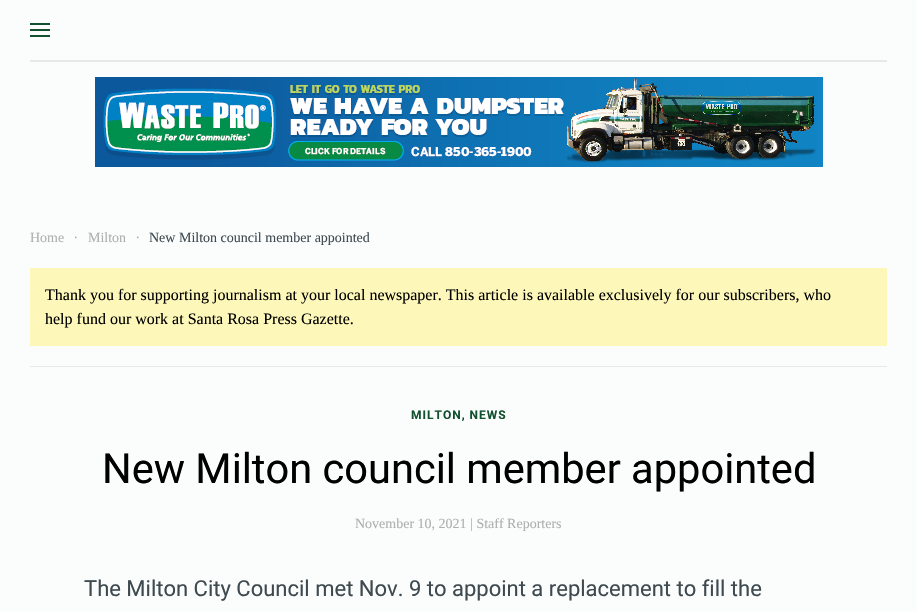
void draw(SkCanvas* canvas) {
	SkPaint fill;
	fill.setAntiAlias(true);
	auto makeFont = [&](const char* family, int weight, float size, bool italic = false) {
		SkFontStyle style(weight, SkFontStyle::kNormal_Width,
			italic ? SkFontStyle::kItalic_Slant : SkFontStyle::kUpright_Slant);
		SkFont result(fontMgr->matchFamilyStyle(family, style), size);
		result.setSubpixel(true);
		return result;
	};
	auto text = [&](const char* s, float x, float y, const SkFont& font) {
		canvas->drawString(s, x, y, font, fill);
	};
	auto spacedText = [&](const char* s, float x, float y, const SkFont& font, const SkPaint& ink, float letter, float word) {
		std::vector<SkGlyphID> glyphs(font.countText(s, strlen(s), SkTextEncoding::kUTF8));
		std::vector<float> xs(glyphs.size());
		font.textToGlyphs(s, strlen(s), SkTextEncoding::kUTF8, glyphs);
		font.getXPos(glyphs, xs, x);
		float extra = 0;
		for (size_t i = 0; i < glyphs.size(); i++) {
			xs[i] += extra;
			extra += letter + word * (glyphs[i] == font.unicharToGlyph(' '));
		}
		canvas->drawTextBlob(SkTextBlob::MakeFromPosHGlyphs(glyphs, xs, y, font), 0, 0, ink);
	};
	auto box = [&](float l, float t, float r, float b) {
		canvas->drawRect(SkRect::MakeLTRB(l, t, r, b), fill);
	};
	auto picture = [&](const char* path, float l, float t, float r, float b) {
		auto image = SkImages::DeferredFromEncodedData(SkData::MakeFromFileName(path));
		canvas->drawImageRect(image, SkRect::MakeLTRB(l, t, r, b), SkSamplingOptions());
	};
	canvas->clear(0xFFFBFCFC);
	fill.setColor(0xFFE8E8E8);
	box(30, 60, 887, 62);
	fill.setColor(0xFF11512F);
	box(30, 23, 50, 25);
	box(30, 29, 50, 31);
	box(30, 35, 50, 37);
	picture("image0.png", 95, 77, 823, 167);
	fill.setColor(0xFFFDF7B9);
	box(30, 268, 887, 346);
	fill.setColor(0xFFE8E8E8);
	box(30, 366, 887, 367);
	auto font1 = makeFont("Liberation Serif", 400, 14);
	fill.setColor(0xFFAFAFAF);
	text("Home", 30, 242, font1);
	text("∙", 74, 242, font1);
	text("Milton", 88, 242, font1);
	text("∙", 136, 242, font1);
	fill.setColor(0xFF3E4A4F);
	text("New Milton council member appointed", 149, 242, font1);
	auto font2 = makeFont("Liberation Serif", 400, 16);
	fill.setColor(0xFF000000);
	text("Thank you for supporting journalism at your local newspaper. This article is available exclusively for our subscribers, who", 45, 300, font2);
	text("help fund our work at Santa Rosa Press Gazette.", 45, 324, font2);
	auto font3 = makeFont("Roboto", 700, 12);
	fill.setColor(0xFF11512F);
	spacedText("MILTON, NEWS", 411, 419, font3, fill, 1, 0);
	auto font4 = makeFont("Roboto", 400, 41.6f);
	fill.setColor(0xFF000000);
	text("New Milton council member appointed", 102, 483, font4);
	fill.setColor(0xFFAFAFAF);
	text("November 10, 2021 | Staff Reporters", 355, 528, font1);
	auto font5 = makeFont("Roboto", 400, 22);
	fill.setColor(0xFF3E4A4F);
	text("The Milton City Council met Nov. 9 to appoint a replacement to fill the", 84, 596, font5);
}
